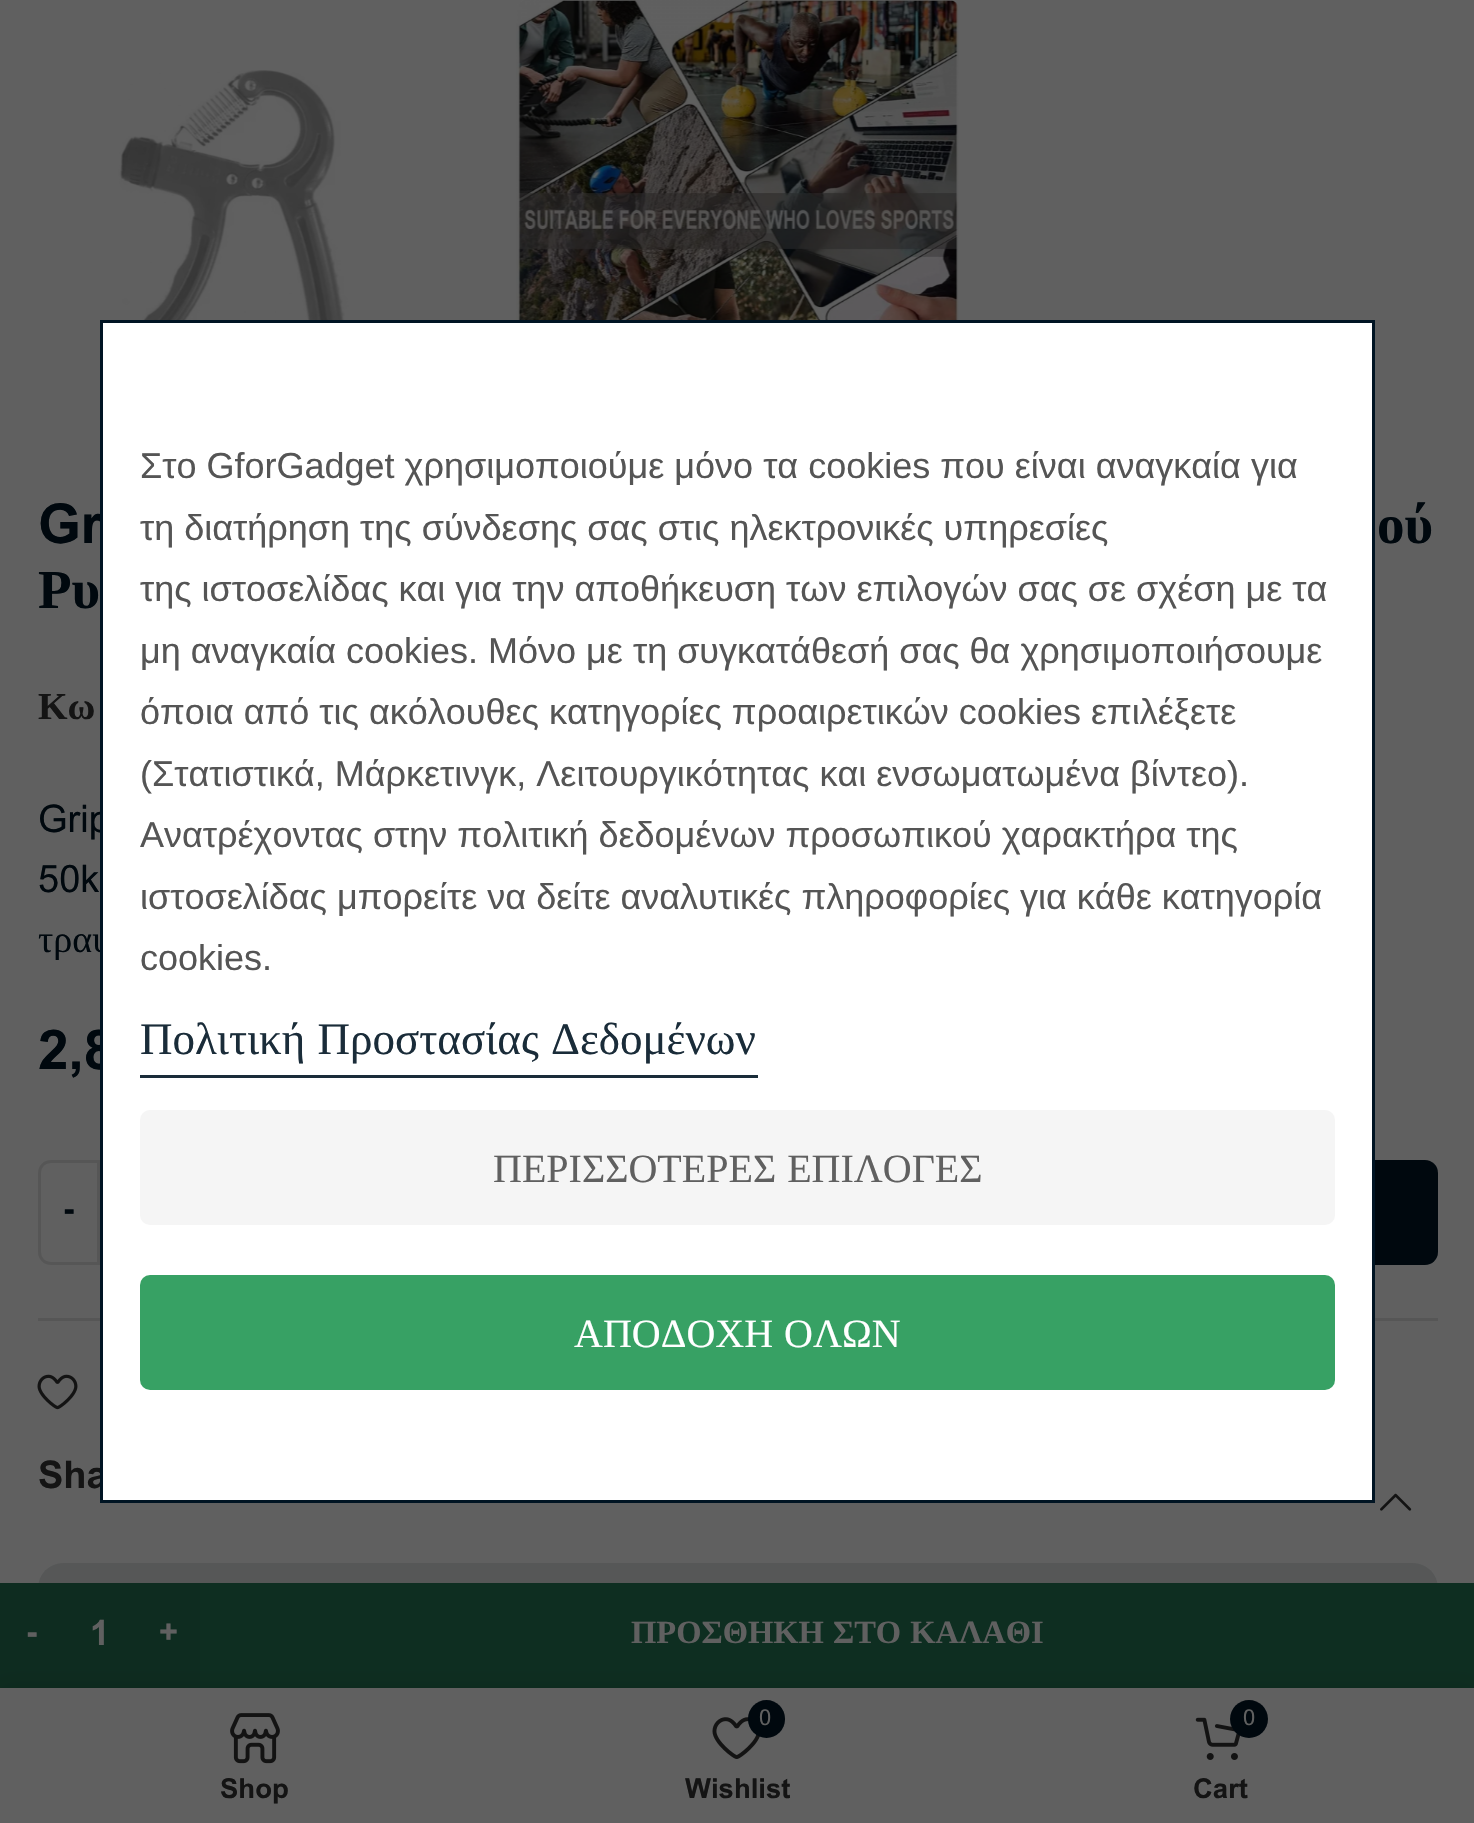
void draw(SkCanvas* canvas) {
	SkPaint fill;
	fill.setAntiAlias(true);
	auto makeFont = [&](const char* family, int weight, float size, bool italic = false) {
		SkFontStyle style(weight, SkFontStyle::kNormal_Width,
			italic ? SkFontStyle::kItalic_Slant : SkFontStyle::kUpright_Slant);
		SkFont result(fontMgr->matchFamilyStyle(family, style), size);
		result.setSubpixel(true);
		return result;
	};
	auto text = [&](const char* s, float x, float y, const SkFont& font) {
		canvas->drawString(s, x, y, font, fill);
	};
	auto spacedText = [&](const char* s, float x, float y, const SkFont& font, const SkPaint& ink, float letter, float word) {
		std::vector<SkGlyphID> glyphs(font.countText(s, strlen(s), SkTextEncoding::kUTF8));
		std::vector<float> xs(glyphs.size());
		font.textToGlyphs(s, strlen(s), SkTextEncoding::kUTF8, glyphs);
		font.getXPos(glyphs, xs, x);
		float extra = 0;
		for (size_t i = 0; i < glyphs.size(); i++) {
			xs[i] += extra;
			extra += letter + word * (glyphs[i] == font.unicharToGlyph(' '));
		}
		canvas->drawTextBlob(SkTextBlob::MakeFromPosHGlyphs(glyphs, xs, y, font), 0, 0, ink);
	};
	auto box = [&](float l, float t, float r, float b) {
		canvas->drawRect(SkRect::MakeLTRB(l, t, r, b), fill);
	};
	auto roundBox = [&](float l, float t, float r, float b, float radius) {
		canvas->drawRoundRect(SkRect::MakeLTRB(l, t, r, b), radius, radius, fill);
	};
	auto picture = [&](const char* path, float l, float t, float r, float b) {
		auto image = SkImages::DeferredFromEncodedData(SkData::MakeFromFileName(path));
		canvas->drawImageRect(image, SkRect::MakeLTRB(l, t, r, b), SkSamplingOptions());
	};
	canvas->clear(0xFF606060);
	picture("image0.png", 118, 70, 349, 320);
	picture("image1.png", 516, 0, 959, 320);
	fill.setStyle(SkPaint::kStroke_Style);
	fill.setStrokeWidth(3);
	fill.setColor(0xFF565656);
	canvas->drawPath(SkPathBuilder().moveTo(51, 1161.5f).lineTo(98.5f, 1161.5f).lineTo(98.5f, 1263.5f).lineTo(51, 1263.5f).cubicTo(44.5f, 1263.5f, 39.5f, 1258.5f, 39.5f, 1252).lineTo(39.5f, 1173).cubicTo(39.5f, 1166.5f, 44.5f, 1161.5f, 51, 1161.5f).close().detach(), fill);
	fill.setStyle(SkPaint::kFill_Style);
	fill.setColor(0xFF00080E);
	roundBox(1063, 1160, 1438, 1265, 13);
	fill.setColor(0xFF565656);
	box(38, 1318, 1438, 1321);
	picture("image2.png", 37, 1374, 78, 1410);
	fill.setColor(0x1A00080E);
	roundBox(38, 1563, 1438, 1698, 25);
	picture("image3.png", 1380, 1493, 1412, 1511);
	fill.setColor(0xFF0E2C20);
	box(0, 1583, 200, 1688);
	fill.setColor(0xFF0E2E21);
	box(200, 1583, 1474, 1688);
	fill.setColor(0x1F000000);
	fill.setMaskFilter(SkMaskFilter::MakeBlur(kNormal_SkBlurStyle, 11));
	canvas->drawRect(SkRect::MakeLTRB(0, 1688, 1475, 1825), fill);
	fill.setMaskFilter(nullptr);
	fill.setColor(0xFF606060);
	box(0, 1688, 1474, 1823);
	picture("image4.png", 230, 1713, 280, 1764);
	picture("image5.png", 712, 1717, 760, 1759);
	fill.setColor(0xFF00080E);
	roundBox(748, 1700, 785, 1738, 18.5f);
	picture("image6.png", 1195, 1717, 1241, 1760);
	canvas->drawCircle(1249, 1719, 19, fill);
	auto font1 = makeFont("Arial", 700, 55);
	text("Gr", 38, 543, font1);
	auto font2 = makeFont("Liberation Serif", 700, 55);
	text("ού", 1377, 543, font2);
	text("Ρυ", 38, 608, font2);
	auto font3 = makeFont("Liberation Serif", 700, 38);
	fill.setColor(0xFF141414);
	spacedText("Κω", 38, 719, font3, fill, 0, 1);
	auto font4 = makeFont("Arial", 400, 38);
	fill.setColor(0xFF00080E);
	text("Grip", 38, 832, font4);
	text("50k", 38, 892, font4);
	auto font5 = makeFont("Liberation Serif", 400, 38);
	text("τραυ", 38, 952, font5);
	text("2,8", 38, 1069, font1);
	auto font6 = makeFont("Arial", 700, 32.5f);
	text("-", 63, 1220, font6);
	auto font7 = makeFont("Arial", 700, 38);
	fill.setColor(0xFF141414);
	text("Sha", 38, 1488, font7);
	fill.setColor(0xFFFFFFFF);
	canvas->drawRect(SkRect::MakeLTRB(101.5f, 321.5f, 1373.5f, 1501.5f), fill);
	fill.setStyle(SkPaint::kStroke_Style);
	fill.setColor(0xFF001423);
	canvas->drawRect(SkRect::MakeLTRB(101.5f, 321.5f, 1373.5f, 1501.5f), fill);
	fill.setStyle(SkPaint::kFill_Style);
	fill.setColor(0xFF37A164);
	roundBox(140, 1275, 1335, 1390, 10);
	auto font8 = makeFont("Liberation Serif", 400, 40);
	fill.setColor(0xFFFFFFFF);
	spacedText("ΑΠΟΔΟΧΗ ΟΛΩΝ", 574, 1347, font8, fill, 0, 1);
	fill.setColor(0xFFF5F5F5);
	roundBox(140, 1110, 1335, 1225, 10);
	fill.setColor(0xFF606060);
	spacedText("ΠΕΡΙΣΣΟΤΕΡΕΣ ΕΠΙΛΟΓΕΣ", 493, 1182, font8, fill, 0, 1);
	fill.setColor(0xFF1A2C39);
	box(140, 1075, 758, 1078);
	auto font9 = makeFont("Liberation Serif", 400, 45);
	spacedText("Πολιτική Προστασίας Δεδομένων", 140, 1054, font9, fill, 0, 1);
	auto font10 = makeFont("Liberation Sans", 400, 36);
	fill.setColor(0xFF555555);
	text("cookies.", 140, 970, font10);
	text("ιστοσελίδας μπορείτε να δείτε αναλυτικές πληροφορίες για κάθε κατηγορία", 140, 909, font10);
	text("Ανατρέχοντας στην πολιτική δεδομένων προσωπικού χαρακτήρα της", 140, 847, font10);
	text("(Στατιστικά, Μάρκετινγκ, Λειτουργικότητας και ενσωματωμένα βίντεο).", 140, 786, font10);
	text("όποια από τις ακόλουθες κατηγορίες προαιρετικών cookies επιλέξετε", 140, 724, font10);
	text("μη αναγκαία cookies. Μόνο με τη συγκατάθεσή σας θα χρησιμοποιήσουμε", 140, 663, font10);
	text("της ιστοσελίδας και για την αποθήκευση των επιλογών σας σε σχέση με τα", 140, 601, font10);
	text("τη διατήρηση της σύνδεσης σας στις ηλεκτρονικές υπηρεσίες", 140, 540, font10);
	text("Στο GforGadget χρησιμοποιούμε μόνο τα cookies που είναι αναγκαία για", 140, 478, font10);
	fill.setColor(0xFF606060);
	text("-", 26, 1643, font6);
	auto font11 = makeFont("Arial", 700, 35);
	text("1", 90, 1645, font11);
	text("+", 159, 1643, font6);
	auto font12 = makeFont("Liberation Serif", 700, 32.5f);
	spacedText("ΠΡΟΣΘΗΚΗ ΣΤΟ ΚΑΛΑΘΙ", 631, 1643, font12, fill, 0, 1);
	auto font13 = makeFont("Arial", 700, 27.5f);
	fill.setColor(0xFF141414);
	text("Shop", 220, 1798, font13);
	auto font14 = makeFont("Arial", 400, 22);
	fill.setColor(0xFF606060);
	text("0", 759, 1725, font14);
	fill.setColor(0xFF141414);
	text("Wishlist", 685, 1798, font13);
	fill.setColor(0xFF606060);
	text("0", 1243, 1725, font14);
	fill.setColor(0xFF141414);
	text("Cart", 1193, 1798, font13);
}
